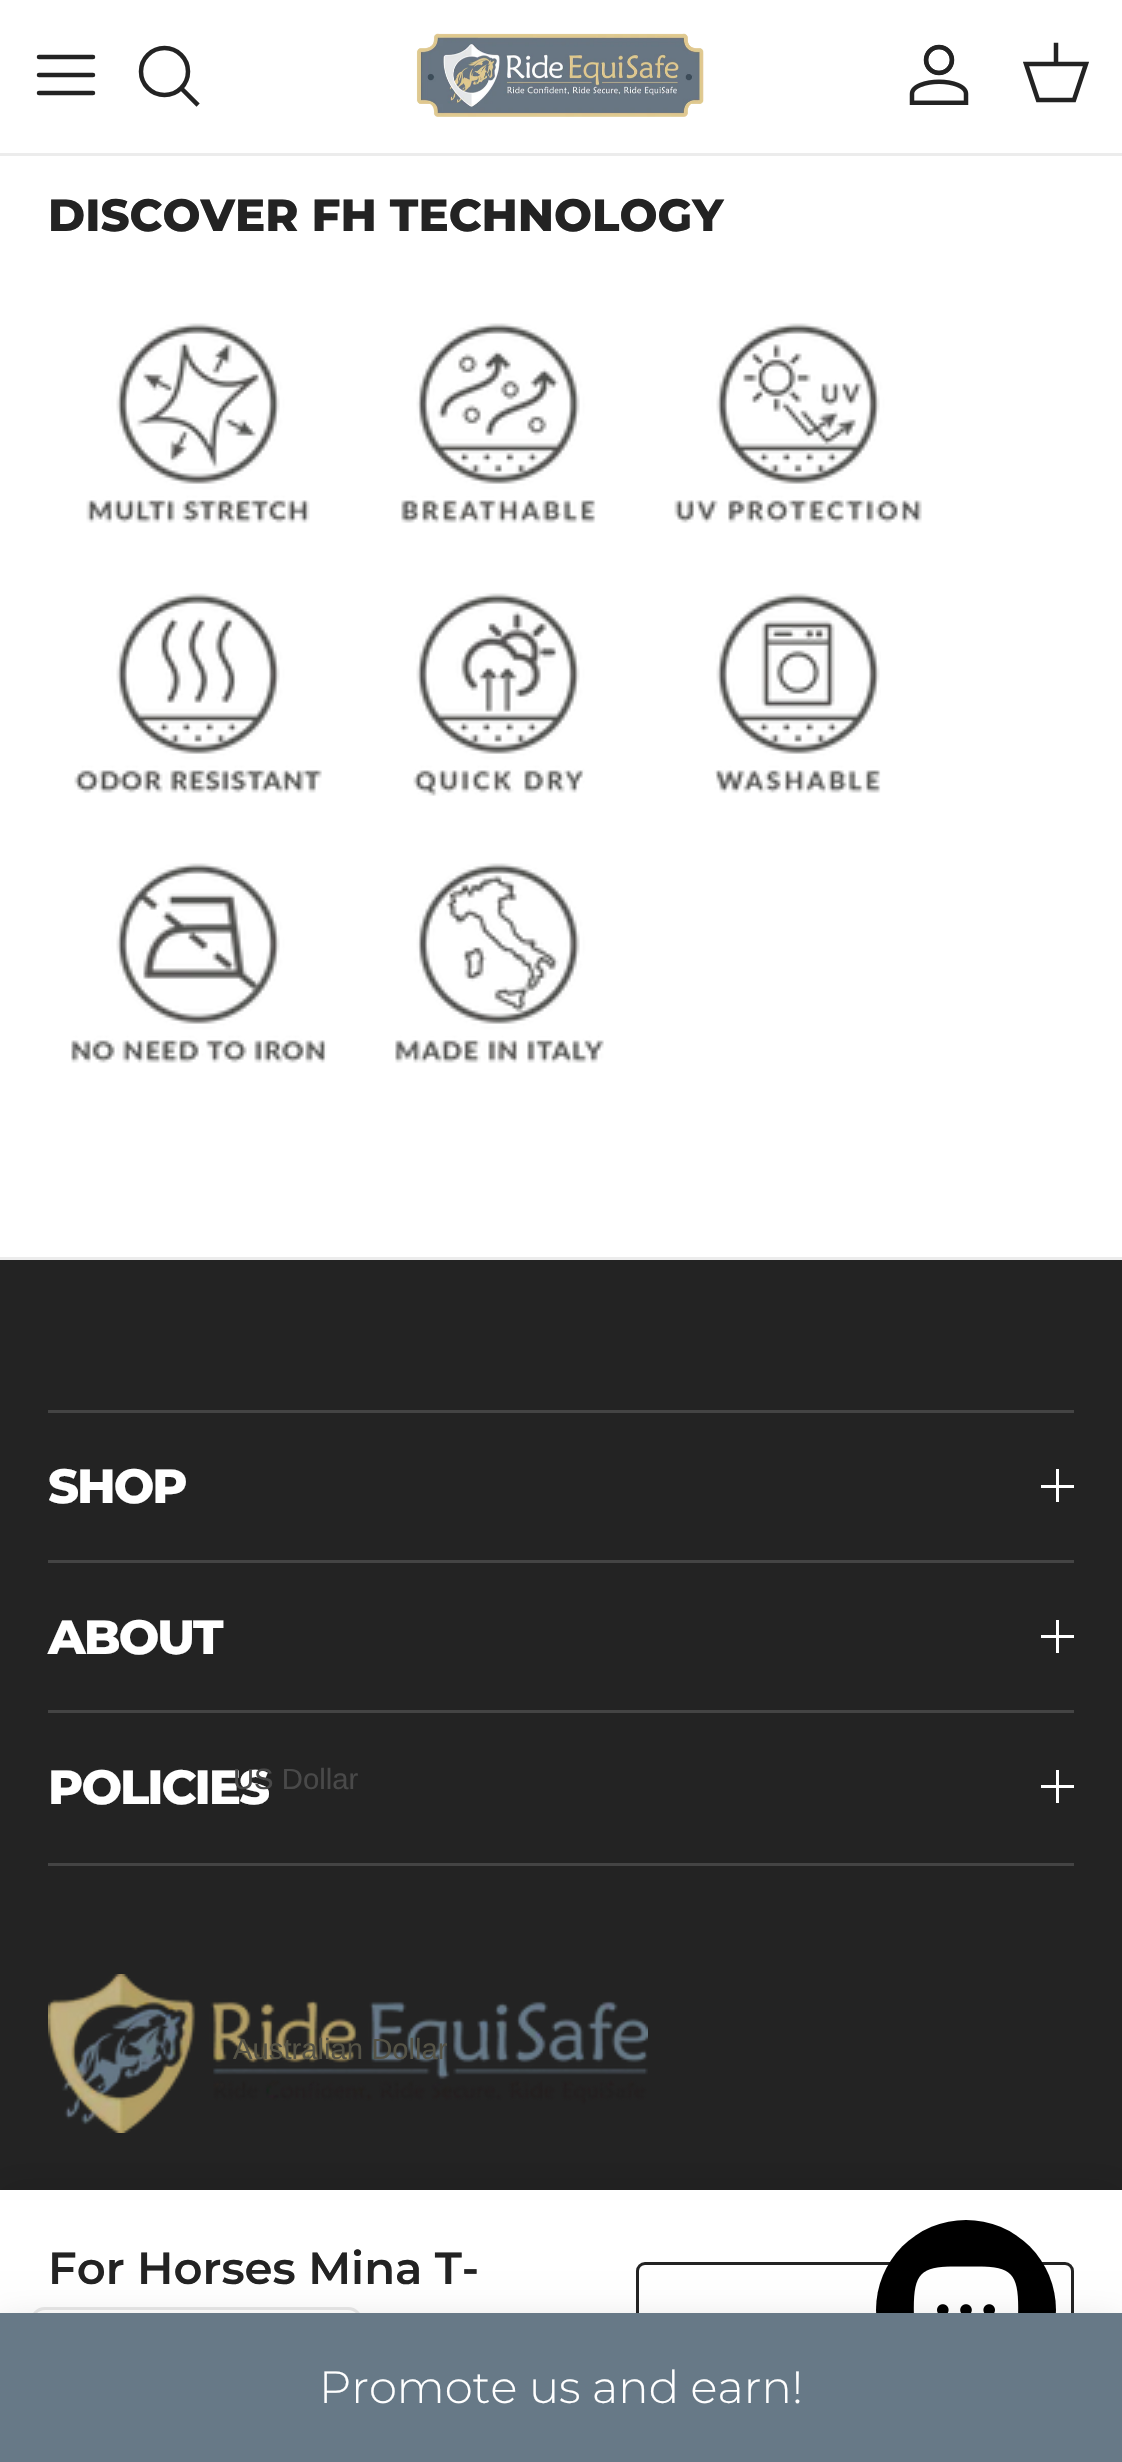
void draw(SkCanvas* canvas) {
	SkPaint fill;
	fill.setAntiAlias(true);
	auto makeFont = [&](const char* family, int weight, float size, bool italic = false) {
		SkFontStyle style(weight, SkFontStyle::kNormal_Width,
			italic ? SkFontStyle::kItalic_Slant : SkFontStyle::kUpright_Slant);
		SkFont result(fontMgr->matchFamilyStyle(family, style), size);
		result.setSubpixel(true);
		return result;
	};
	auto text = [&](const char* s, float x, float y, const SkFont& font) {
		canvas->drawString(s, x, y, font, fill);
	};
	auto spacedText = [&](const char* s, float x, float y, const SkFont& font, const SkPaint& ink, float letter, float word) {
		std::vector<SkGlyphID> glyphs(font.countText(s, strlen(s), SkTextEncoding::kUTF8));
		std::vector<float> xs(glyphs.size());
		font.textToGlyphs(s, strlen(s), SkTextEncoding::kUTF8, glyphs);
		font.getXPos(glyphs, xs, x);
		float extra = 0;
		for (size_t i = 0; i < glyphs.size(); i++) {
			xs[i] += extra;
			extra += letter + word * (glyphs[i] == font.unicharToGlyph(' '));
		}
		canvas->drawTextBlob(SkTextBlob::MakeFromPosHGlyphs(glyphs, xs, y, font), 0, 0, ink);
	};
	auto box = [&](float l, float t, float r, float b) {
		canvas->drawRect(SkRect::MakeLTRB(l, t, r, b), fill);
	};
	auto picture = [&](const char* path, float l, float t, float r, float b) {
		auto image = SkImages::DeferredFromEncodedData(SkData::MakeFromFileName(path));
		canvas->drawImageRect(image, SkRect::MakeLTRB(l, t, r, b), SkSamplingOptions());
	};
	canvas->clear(0xFFFFFFFF);
	fill.setColor(0xFFECECEC);
	box(0, 153, 1122, 156);
	fill.setStyle(SkPaint::kStroke_Style);
	fill.setStrokeWidth(4.5f);
	fill.setStrokeCap(SkPaint::kRound_Cap);
	fill.setStrokeJoin(SkPaint::kRound_Join);
	fill.setColor(0xFF232323);
	canvas->drawPath(SkPathBuilder().moveTo(39, 75).lineTo(93, 75).moveTo(39, 57).lineTo(93, 57).moveTo(39, 93).lineTo(93, 93).detach(), fill);
	fill.setStrokeCap(SkPaint::kButt_Cap);
	fill.setStrokeJoin(SkPaint::kMiter_Join);
	canvas->drawCircle(164.5f, 71.5f, 23.5f, fill);
	fill.setStrokeCap(SkPaint::kSquare_Cap);
	canvas->drawPath(SkPathBuilder().moveTo(183, 90).lineTo(196.5f, 103.5f).detach(), fill);
	picture("image0.png", 416, 33, 704, 117);
	picture("image1.png", 909, 44, 969, 105);
	fill.setStrokeCap(SkPaint::kButt_Cap);
	canvas->drawPath(SkPathBuilder().moveTo(1026, 64).lineTo(1086, 64).lineTo(1074, 100).lineTo(1038, 100).close().detach(), fill);
	fill.setStrokeCap(SkPaint::kSquare_Cap);
	canvas->drawPath(SkPathBuilder().moveTo(1056, 63).lineTo(1056, 45).detach(), fill);
	picture("image2.png", 86, 323, 310, 523);
	picture("image3.png", 401, 323, 596, 523);
	picture("image4.png", 674, 323, 922, 523);
	picture("image5.png", 74, 593, 322, 793);
	picture("image6.png", 413, 593, 585, 796);
	picture("image7.png", 714, 593, 881, 793);
	picture("image8.png", 71, 863, 327, 1063);
	picture("image9.png", 395, 863, 604, 1063);
	fill.setStyle(SkPaint::kFill_Style);
	box(0, 1260, 1122, 2190);
	picture("image10.png", 48, 1974, 648, 2133);
	fill.setColor(0x1F000000);
	fill.setMaskFilter(SkMaskFilter::MakeBlur(kNormal_SkBlurStyle, 18));
	canvas->drawRect(SkRect::MakeLTRB(-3, 2187, 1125, 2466), fill);
	fill.setMaskFilter(nullptr);
	fill.setColor(0xFFFFFFFF);
	box(0, 2190, 1122, 2313);
	fill.setStyle(SkPaint::kStroke_Style);
	fill.setStrokeWidth(3);
	fill.setStrokeCap(SkPaint::kButt_Cap);
	fill.setColor(0xFF232323);
	canvas->drawRoundRect(SkRect::MakeLTRB(637.5f, 2263.5f, 1072.5f, 2389.5f), 7.5f, 7.5f, fill);
	fill.setStyle(SkPaint::kFill_Style);
	fill.setColor(0xFFECECEC);
	box(0, 1257, 1122, 1260);
	fill.setColor(0xFF444444);
	box(48, 1410, 1074, 1413);
	fill.setColor(0xFFFFFFFF);
	box(1056, 1469, 1059, 1502);
	box(1041, 1485, 1074, 1488);
	fill.setColor(0xFF444444);
	box(48, 1560, 1074, 1563);
	fill.setColor(0xFFFFFFFF);
	box(1056, 1620, 1059, 1653);
	box(1041, 1635, 1074, 1638);
	fill.setColor(0xFF444444);
	box(48, 1710, 1074, 1713);
	box(48, 1863, 1074, 1866);
	fill.setColor(0xFFFFFFFF);
	box(1056, 1770, 1059, 1803);
	box(1041, 1785, 1074, 1788);
	canvas->drawRoundRect(SkRect::MakeLTRB(31.5f, 2308.5f, 361.5f, 2431.5f), 13.5f, 13.5f, fill);
	fill.setStyle(SkPaint::kStroke_Style);
	fill.setColor(0xFFE8E8E8);
	canvas->drawRoundRect(SkRect::MakeLTRB(31.5f, 2308.5f, 361.5f, 2431.5f), 13.5f, 13.5f, fill);
	fill.setStyle(SkPaint::kFill_Style);
	fill.setColor(0xFF000000);
	canvas->drawCircle(966, 2310, 90, fill);
	picture("image11.png", 913, 2266, 1019, 2313);
	fill.setColor(0x26000000);
	fill.setMaskFilter(SkMaskFilter::MakeBlur(kNormal_SkBlurStyle, 18));
	canvas->drawRect(SkRect::MakeLTRB(0, 2325, 1122, 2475), fill);
	fill.setMaskFilter(nullptr);
	fill.setColor(0xFF677987);
	box(0, 2313, 1122, 2462);
	auto font1 = makeFont("Montserrat", 800, 45);
	fill.setColor(0xFF232323);
	text("DISCOVER FH TECHNOLOGY", 48, 231, font1);
	auto font2 = makeFont("Montserrat", 600, 45);
	text("For Horses Mina T-", 48, 2284, font2);
	auto font3 = makeFont("Montserrat", 800, 48);
	fill.setColor(0xFFFFFFFF);
	spacedText("SHOP", 48, 1503, font3, fill, -2, 0);
	spacedText("ABOUT", 48, 1654, font3, fill, -2, 0);
	spacedText("POLICIES", 48, 1804, font3, fill, -2, 0);
	auto font4 = makeFont("Liberation Sans", 400, 29.25f);
	fill.setColor(0xFF494949);
	text("US Dollar", 233, 1789, font4);
	fill.setColor(0xFF555346);
	text("Australian Dollar", 233, 2059, font4);
	auto font5 = makeFont("Montserrat", 300, 45);
	fill.setColor(0xFFFFFFFF);
	text("Promote us and earn!", 319, 2403, font5);
}
